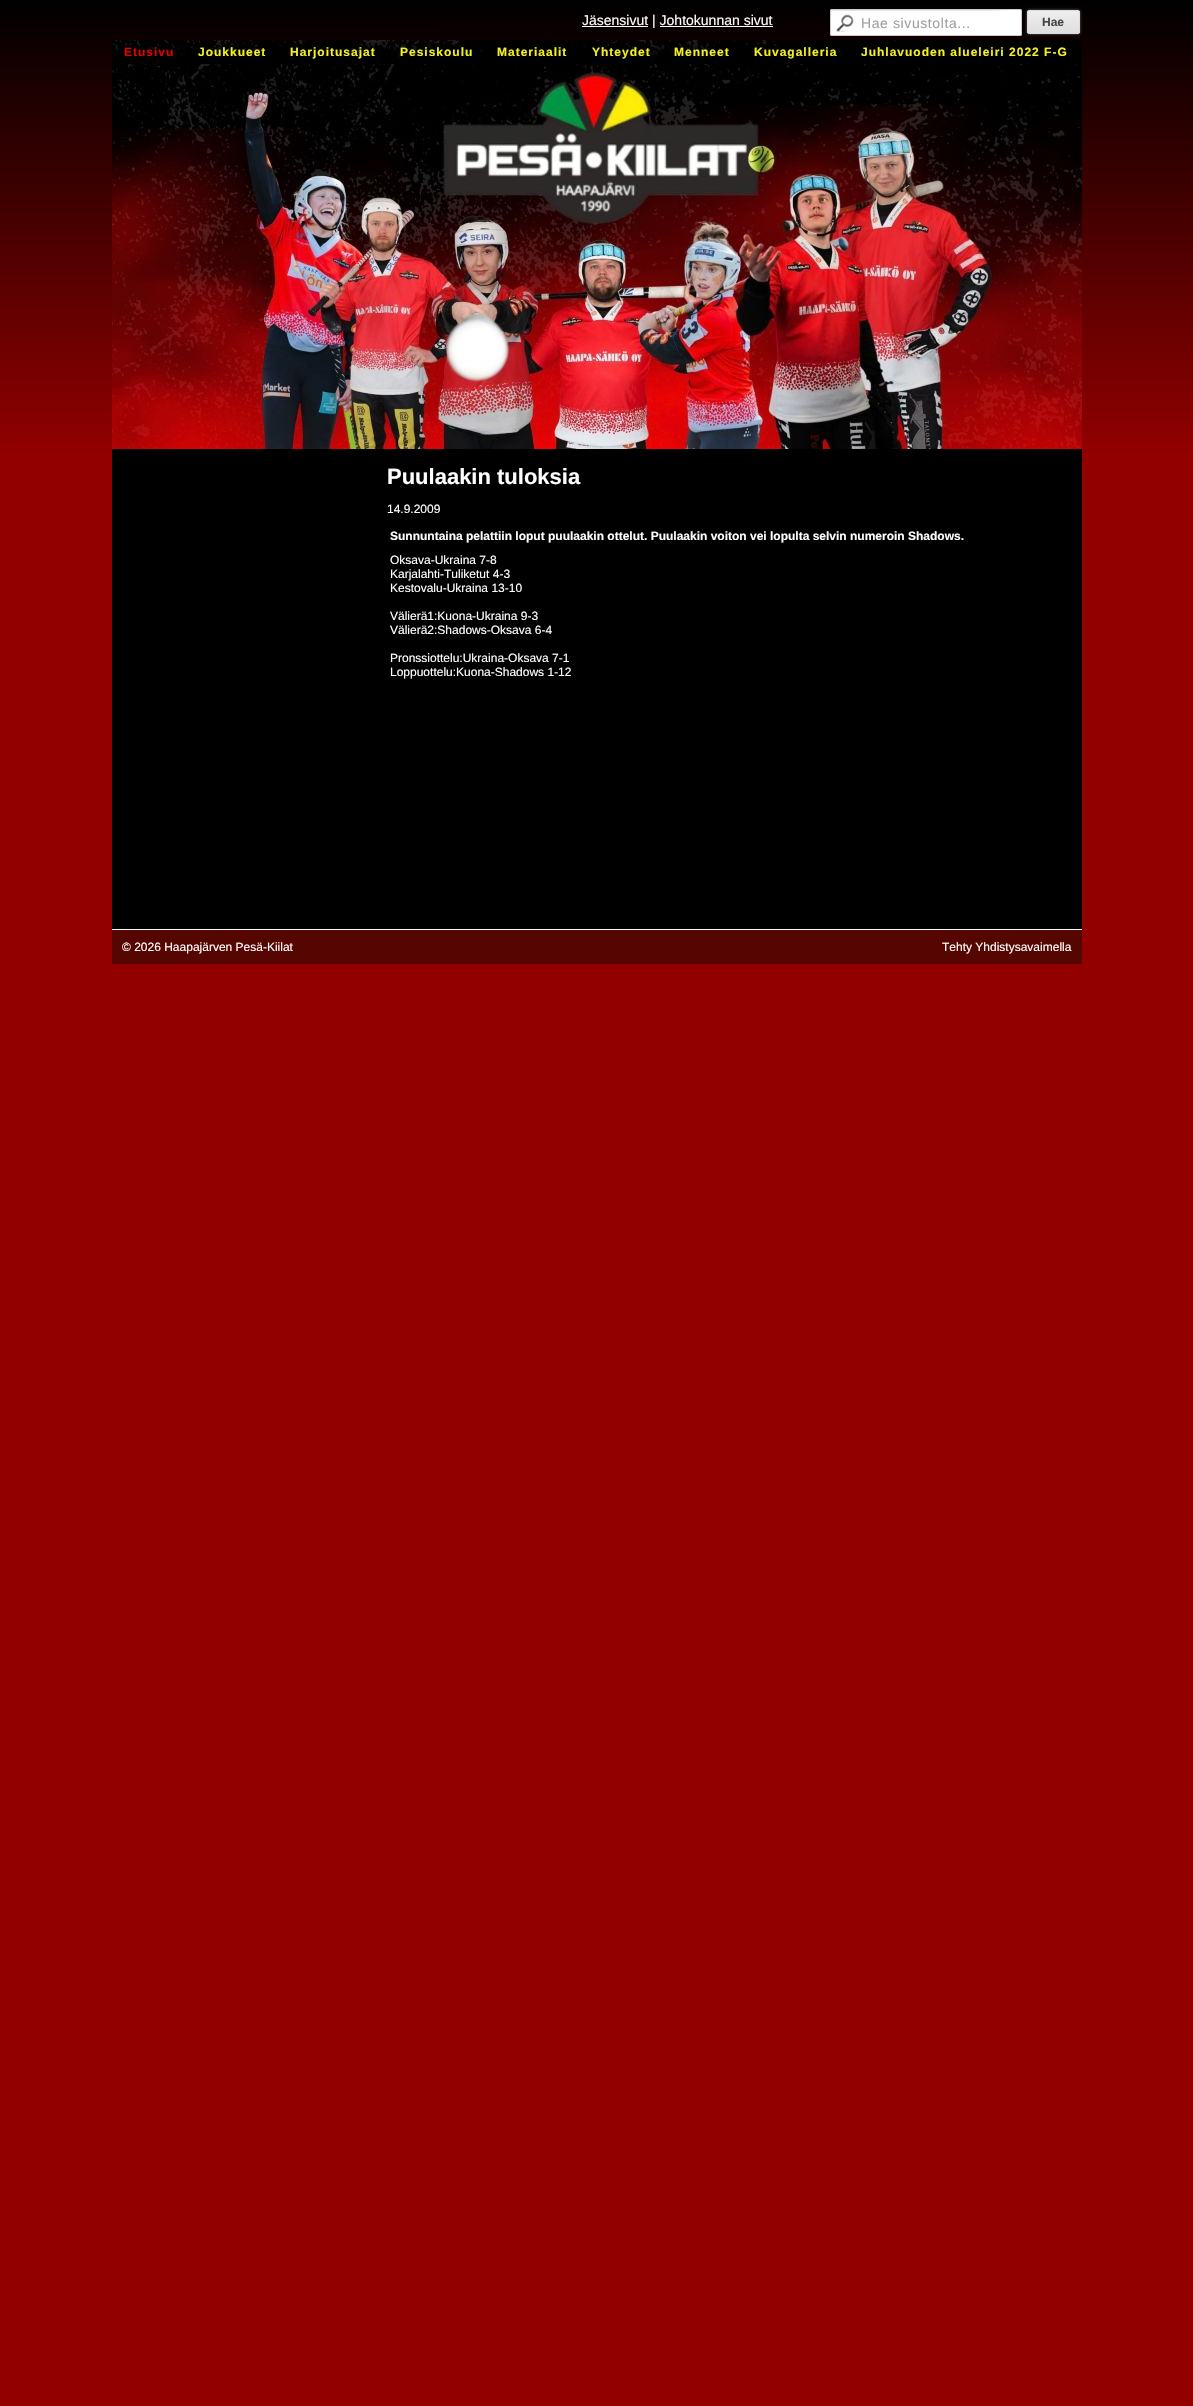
void draw(SkCanvas* canvas) {
	SkPaint fill;
	fill.setAntiAlias(true);
	auto makeFont = [&](const char* family, int weight, float size, bool italic = false) {
		SkFontStyle style(weight, SkFontStyle::kNormal_Width,
			italic ? SkFontStyle::kItalic_Slant : SkFontStyle::kUpright_Slant);
		SkFont result(fontMgr->matchFamilyStyle(family, style), size);
		result.setSubpixel(true);
		return result;
	};
	auto text = [&](const char* s, float x, float y, const SkFont& font) {
		canvas->drawString(s, x, y, font, fill);
	};
	auto spacedText = [&](const char* s, float x, float y, const SkFont& font, const SkPaint& ink, float letter, float word) {
		std::vector<SkGlyphID> glyphs(font.countText(s, strlen(s), SkTextEncoding::kUTF8));
		std::vector<float> xs(glyphs.size());
		font.textToGlyphs(s, strlen(s), SkTextEncoding::kUTF8, glyphs);
		font.getXPos(glyphs, xs, x);
		float extra = 0;
		for (size_t i = 0; i < glyphs.size(); i++) {
			xs[i] += extra;
			extra += letter + word * (glyphs[i] == font.unicharToGlyph(' '));
		}
		canvas->drawTextBlob(SkTextBlob::MakeFromPosHGlyphs(glyphs, xs, y, font), 0, 0, ink);
	};
	auto box = [&](float l, float t, float r, float b) {
		canvas->drawRect(SkRect::MakeLTRB(l, t, r, b), fill);
	};
	auto roundBox = [&](float l, float t, float r, float b, float radius) {
		canvas->drawRoundRect(SkRect::MakeLTRB(l, t, r, b), radius, radius, fill);
	};
	auto picture = [&](const char* path, float l, float t, float r, float b) {
		auto image = SkImages::DeferredFromEncodedData(SkData::MakeFromFileName(path));
		canvas->drawImageRect(image, SkRect::MakeLTRB(l, t, r, b), SkSamplingOptions());
	};
	canvas->clear(0xFFFFFFFF);
	{
		const SkColor colors[] = {0xFF000000, 0xFF930000, 0xFF930000};
		const float stops[] = {0, 0.19f, 1};
		const SkPoint ends[] = {{596, 0}, {597, 2406}};
		fill.setShader(SkGradientShader::MakeLinear(ends, colors, stops, 3, SkTileMode::kClamp));
		fill.setAlpha(255);
	}
	box(0, 0, 1193, 2406);
	fill.setShader(nullptr);
	fill.setColor(0xFFFFFFFF);
	box(582, 26, 648, 27);
	box(660, 26, 773, 27);
	roundBox(830, 9, 1022, 36, 2);
	picture("image0.png", 836, 14, 854, 32);
	fill.setColor(0xFFE6E6E6);
	canvas->drawPath(SkPathBuilder(SkPathFillType::kEvenOdd).moveTo(832, 11).lineTo(831, 12).lineTo(831, 10).lineTo(1011, 10).lineTo(989, 11).close().moveTo(1019, 10).cubicTo(1020, 10, 1021, 11, 1021, 12).cubicTo(1021, 10, 1021, 10, 1019, 10).close().detach(), fill);
	fill.setStyle(SkPaint::kStroke_Style);
	fill.setStrokeWidth(1);
	fill.setColor(0xFFCCCCCC);
	canvas->drawRoundRect(SkRect::MakeLTRB(830.5f, 9.5f, 1021.5f, 35.5f), 1.5f, 1.5f, fill);
	fill.setStyle(SkPaint::kFill_Style);
	fill.setColor(0xFF666666);
	fill.setMaskFilter(SkMaskFilter::MakeBlur(kNormal_SkBlurStyle, 1.5f));
	canvas->drawRoundRect(SkRect::MakeLTRB(1027, 10, 1080, 34), 2, 2, fill);
	fill.setMaskFilter(nullptr);
	canvas->save();
	canvas->clipPath(SkPathBuilder().moveTo(1029, 10).lineTo(1078, 10).cubicTo(1079, 10, 1080, 11, 1080, 12).lineTo(1080, 32).cubicTo(1080, 33, 1079, 34, 1078, 34).lineTo(1029, 34).cubicTo(1028, 34, 1027, 33, 1027, 32).lineTo(1027, 12).cubicTo(1027, 11, 1028, 10, 1029, 10).close().detach(), true);
	{
		const SkColor colors[] = {0xFFEDEDED, 0xFFDFDFDF};
		const float stops[] = {0.05f, 1};
		const SkPoint ends[] = {{1028, 11}, {1028, 33}};
		fill.setShader(SkGradientShader::MakeLinear(ends, colors, stops, 2, SkTileMode::kClamp));
		fill.setAlpha(255);
	}
	box(1027, 11, 1080, 33);
	canvas->restore();
	fill.setStyle(SkPaint::kStroke_Style);
	fill.setShader(nullptr);
	fill.setColor(0xFFDCDCDC);
	canvas->drawRoundRect(SkRect::MakeLTRB(1027.5f, 10.5f, 1079.5f, 33.5f), 1.5f, 1.5f, fill);
	picture("image1.png", 112, 40, 1082, 449);
	fill.setStyle(SkPaint::kFill_Style);
	fill.setColor(0xFF000000);
	box(112, 449, 1082, 929);
	fill.setColor(0xFF550601);
	box(112, 930, 1082, 964);
	fill.setColor(0xFFFFFFFF);
	box(112, 929, 1082, 930);
	auto font1 = makeFont("Liberation Sans", 400, 14);
	text("Jäsensivut | Johtokunnan sivut", 582, 25, font1);
	fill.setColor(0xFF9F9F9F);
	spacedText("Hae sivustolta...", 861, 28, font1, fill, 0.6f, 0);
	auto font2 = makeFont("Liberation Sans", 700, 12);
	fill.setColor(0xFF444444);
	text("Hae", 1042, 26, font2);
	fill.setColor(0xFFE60000);
	spacedText("Etusivu", 124, 56, font2, fill, 1, 0);
	fill.setColor(0xFFF4F123);
	spacedText("Joukkueet", 198, 56, font2, fill, 1, 0);
	spacedText("Harjoitusajat", 290, 56, font2, fill, 1, 0);
	spacedText("Pesiskoulu", 400, 56, font2, fill, 1, 0);
	spacedText("Materiaalit", 497, 56, font2, fill, 1, 0);
	spacedText("Yhteydet", 592, 56, font2, fill, 1, 0);
	spacedText("Menneet", 674, 56, font2, fill, 1, 0);
	spacedText("Kuvagalleria", 754, 56, font2, fill, 1, 0);
	spacedText("Juhlavuoden alueleiri 2022 F-G", 861, 56, font2, fill, 1, 0);
	auto font3 = makeFont("Liberation Sans", 700, 22);
	fill.setColor(0xFFFFFFFF);
	text("Puulaakin tuloksia", 387, 484, font3);
	auto font4 = makeFont("Liberation Sans", 400, 12);
	text("14.9.2009", 387, 513, font4);
	text("Sunnuntaina pelattiin loput puulaakin ottelut. Puulaakin voiton vei lopulta selvin numeroin Shadows.", 390, 540, font2);
	text("Oksava-Ukraina 7-8", 390, 564, font4);
	text("Karjalahti-Tuliketut 4-3", 390, 578, font4);
	text("Kestovalu-Ukraina 13-10", 390, 592, font4);
	text("Välierä1:Kuona-Ukraina 9-3", 390, 620, font4);
	text("Välierä2:Shadows-Oksava 6-4", 390, 634, font4);
	text("Pronssiottelu:Ukraina-Oksava 7-1", 390, 662, font4);
	text("Loppuottelu:Kuona-Shadows 1-12", 390, 676, font4);
	text("© 2026 Haapajärven Pesä-Kiilat", 122, 951, font4);
	text("Tehty Yhdistysavaimella", 942, 951, font4);
}
